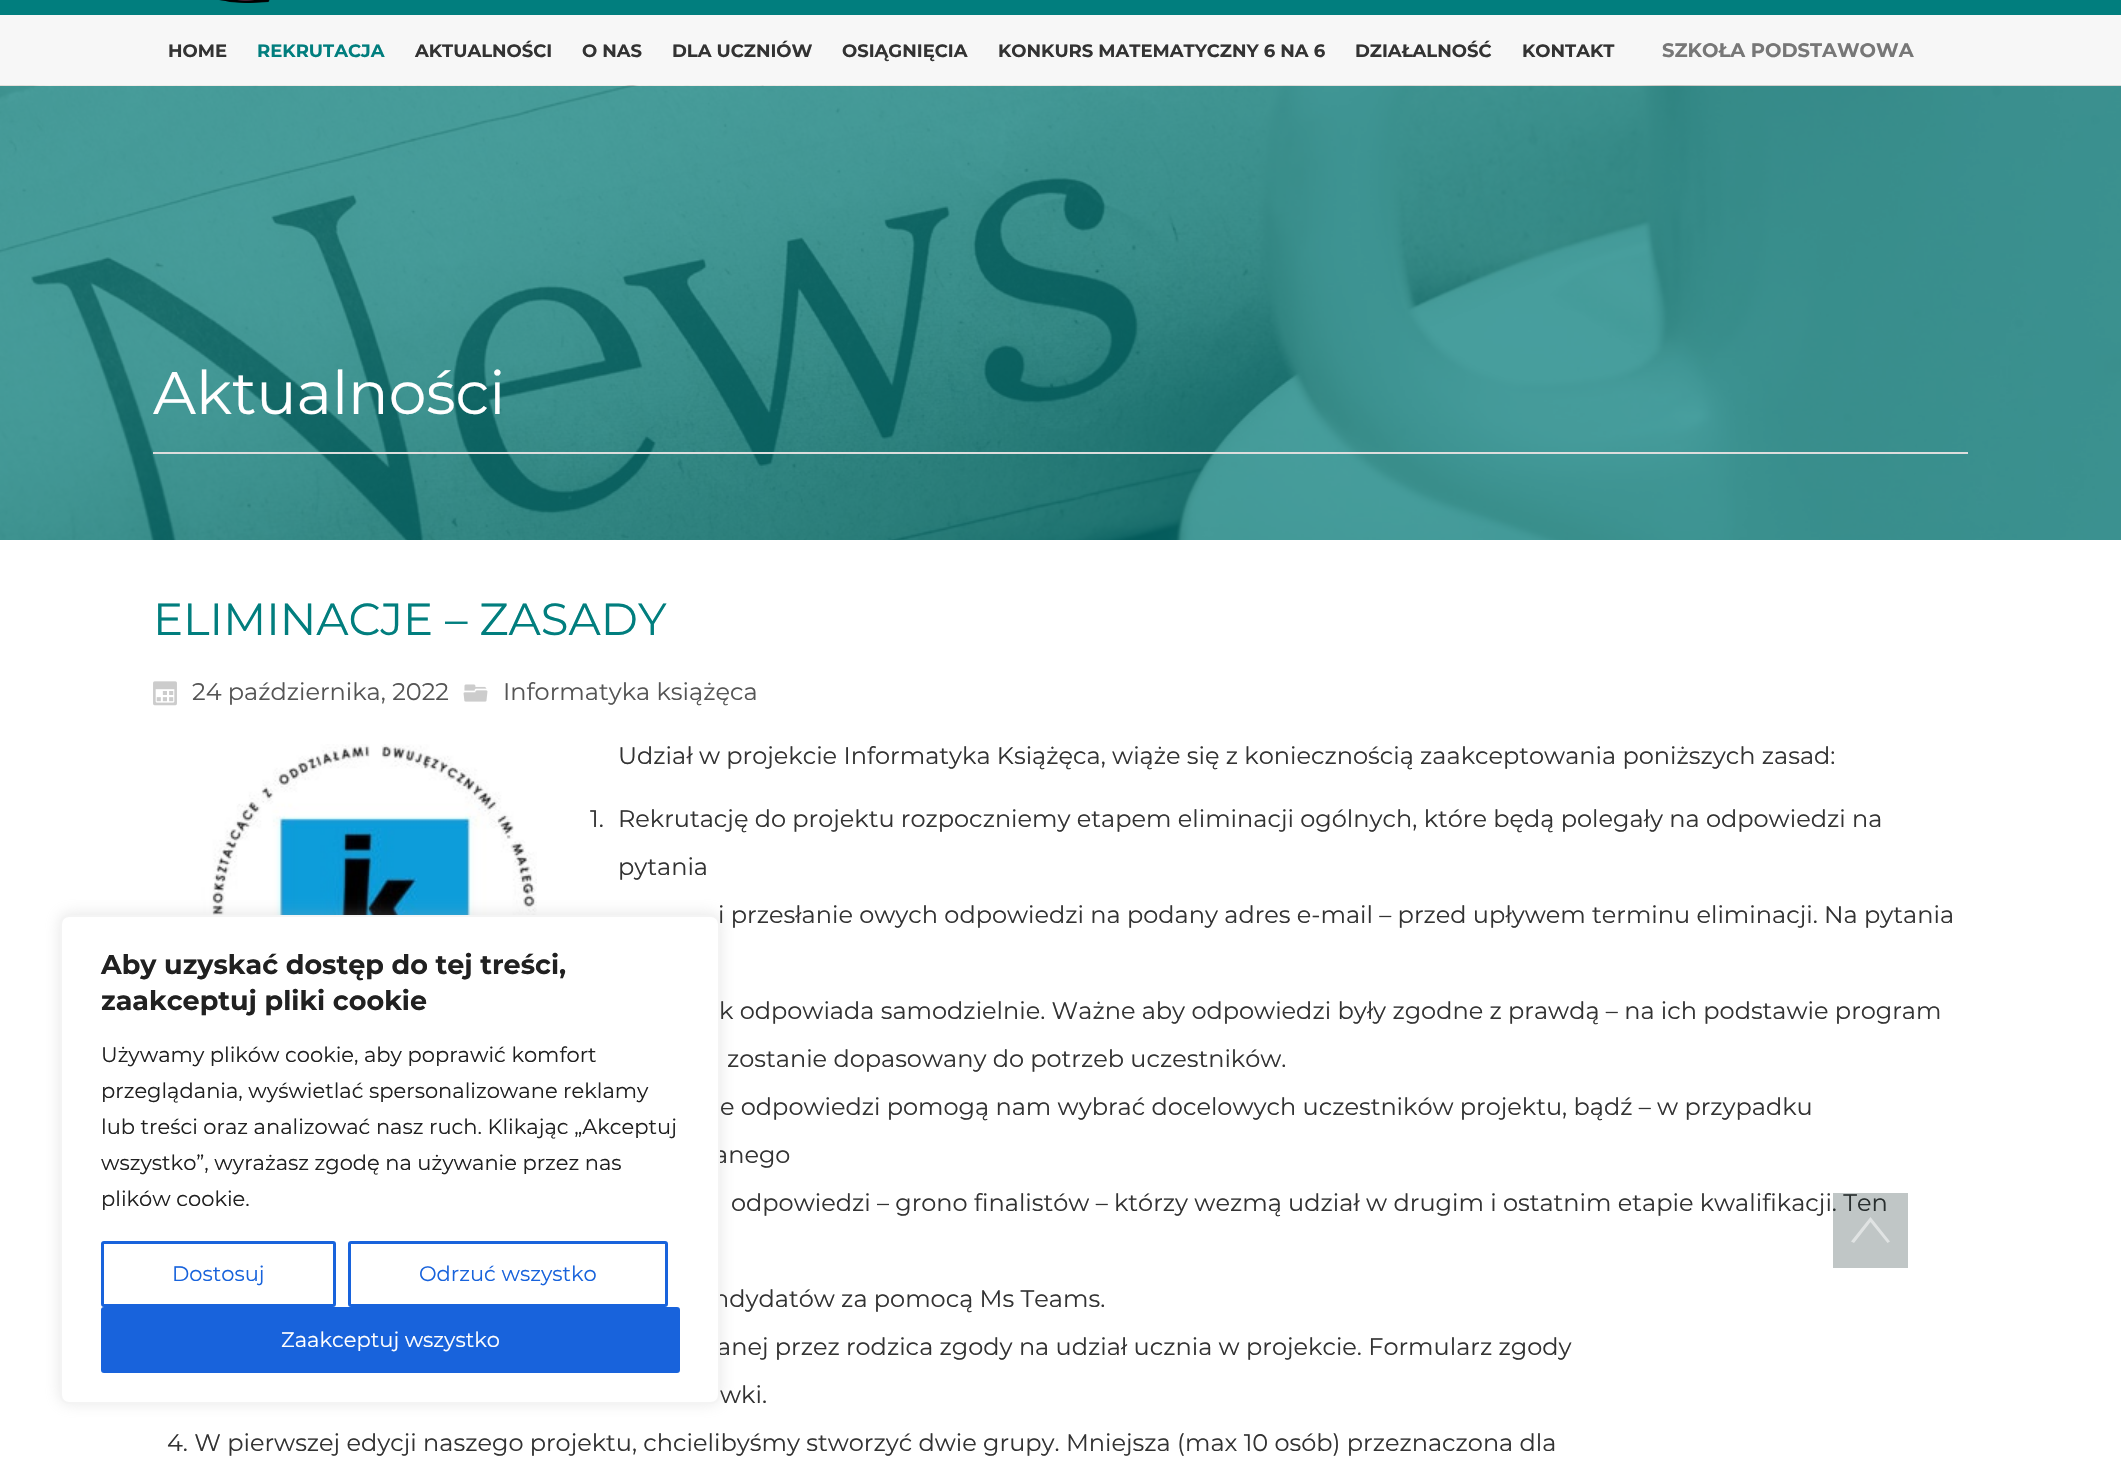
void draw(SkCanvas* canvas) {
	SkPaint fill;
	fill.setAntiAlias(true);
	auto makeFont = [&](const char* family, int weight, float size, bool italic = false) {
		SkFontStyle style(weight, SkFontStyle::kNormal_Width,
			italic ? SkFontStyle::kItalic_Slant : SkFontStyle::kUpright_Slant);
		SkFont result(fontMgr->matchFamilyStyle(family, style), size);
		result.setSubpixel(true);
		return result;
	};
	auto text = [&](const char* s, float x, float y, const SkFont& font) {
		canvas->drawString(s, x, y, font, fill);
	};
	auto box = [&](float l, float t, float r, float b) {
		canvas->drawRect(SkRect::MakeLTRB(l, t, r, b), fill);
	};
	auto picture = [&](const char* path, float l, float t, float r, float b) {
		auto image = SkImages::DeferredFromEncodedData(SkData::MakeFromFileName(path));
		canvas->drawImageRect(image, SkRect::MakeLTRB(l, t, r, b), SkSamplingOptions());
	};
	canvas->clear(0xFFFFFFFF);
	fill.setColor(0xFF017E7E);
	box(0, 0, 2121, 15);
	picture("image0.png", 219, 0, 270, 3);
	fill.setColor(0xFFF7F7F7);
	box(0, 15, 2121, 86);
	picture("image1.png", 0, 85, 2121, 540);
	fill.setColor(0xFFDDDDDD);
	box(153, 452, 1968, 454);
	picture("image2.png", 153, 681, 177, 706);
	picture("image3.png", 463, 684, 488, 702);
	picture("image4.png", 201, 744, 537, 915);
	fill.setColor(0x4DACABAB);
	fill.setMaskFilter(SkMaskFilter::MakeBlur(kNormal_SkBlurStyle, 7.5f));
	canvas->drawRoundRect(SkRect::MakeLTRB(60, 914, 720, 1403), 9, 9, fill);
	fill.setMaskFilter(nullptr);
	auto font1 = makeFont("Montserrat", 700, 18);
	fill.setColor(0xFF333333);
	text("HOME", 168, 57, font1);
	fill.setColor(0xFF017E7E);
	text("REKRUTACJA", 257, 57, font1);
	fill.setColor(0xFF333333);
	text("AKTUALNOŚCI", 415, 57, font1);
	text("O NAS", 582, 57, font1);
	text("DLA UCZNIÓW", 672, 57, font1);
	text("OSIĄGNIĘCIA", 842, 57, font1);
	text("KONKURS MATEMATYCZNY 6 NA 6", 998, 57, font1);
	text("DZIAŁALNOŚĆ", 1355, 57, font1);
	text("KONTAKT", 1522, 57, font1);
	auto font2 = makeFont("Montserrat", 700, 19.5f);
	fill.setColor(0xFF777777);
	text("SZKOŁA PODSTAWOWA", 1662, 57, font2);
	auto font3 = makeFont("Montserrat", 400, 60);
	fill.setColor(0xFFFFFFFF);
	text("Aktualności", 153, 414, font3);
	auto font4 = makeFont("Montserrat", 400, 45);
	fill.setColor(0xFF017E7E);
	text("ELIMINACJE – ZASADY", 153, 635, font4);
	auto font5 = makeFont("Montserrat", 400, 24);
	fill.setColor(0xFF555555);
	text("24 października, 2022", 192, 700, font5);
	text("Informatyka książęca", 503, 700, font5);
	fill.setColor(0xFF333333);
	text("Udział w projekcie Informatyka Książęca, wiąże się z koniecznością zaakceptowania poniższych zasad:", 618, 764, font5);
	text("1.", 590, 827, font5);
	text("Rekrutację do projektu rozpoczniemy etapem eliminacji ogólnych, które będą polegały na odpowiedzi na", 618, 827, font5);
	text("pytania", 618, 875, font5);
	text("i przesłanie owych odpowiedzi na podany adres e-mail – przed upływem terminu eliminacji. Na pytania", 718, 923, font5);
	text("k odpowiada samodzielnie. Ważne aby odpowiedzi były zgodne z prawdą – na ich podstawie program", 719, 1019, font5);
	text("zostanie dopasowany do potrzeb uczestników.", 727, 1067, font5);
	text("e odpowiedzi pomogą nam wybrać docelowych uczestników projektu, bądź – w przypadku", 720, 1115, font5);
	text("anego", 714, 1163, font5);
	text("odpowiedzi – grono finalistów – którzy wezmą udział w drugim i ostatnim etapie kwalifikacji. Ten", 731, 1211, font5);
	text("ndydatów za pomocą Ms Teams.", 713, 1307, font5);
	text("anej przez rodzica zgody na udział ucznia w projekcie. Formularz zgody", 717, 1355, font5);
	text("wki.", 720, 1403, font5);
	text("4. W pierwszej edycji naszego projektu, chcielibyśmy stworzyć dwie grupy. Mniejsza (max 10 osób) przeznaczona dla", 167, 1451, font5);
	fill.setColor(0xFFFFFFFF);
	canvas->drawRoundRect(SkRect::MakeLTRB(61, 916, 719, 1403), 8, 8, fill);
	fill.setStyle(SkPaint::kStroke_Style);
	fill.setStrokeWidth(2);
	fill.setColor(0xFFF4F4F4);
	canvas->drawRoundRect(SkRect::MakeLTRB(61, 916, 719, 1403), 8, 8, fill);
	auto font6 = makeFont("Montserrat", 700, 27);
	fill.setStyle(SkPaint::kFill_Style);
	fill.setColor(0xFF212121);
	text("Aby uzyskać dostęp do tej treści,", 101, 974, font6);
	text("zaakceptuj pliki cookie", 101, 1010, font6);
	auto font7 = makeFont("Montserrat", 400, 21);
	text("Używamy plików cookie, aby poprawić komfort", 101, 1062, font7);
	text("przeglądania, wyświetlać spersonalizowane reklamy", 101, 1098, font7);
	text("lub treści oraz analizować nasz ruch. Klikając „Akceptuj", 101, 1134, font7);
	text("wszystko”, wyrażasz zgodę na używanie przez nas", 101, 1170, font7);
	text("plików cookie.", 101, 1206, font7);
	fill.setStyle(SkPaint::kStroke_Style);
	fill.setStrokeWidth(3);
	fill.setColor(0xFF1863DC);
	canvas->drawRoundRect(SkRect::MakeLTRB(102.5f, 1242.5f, 334.5f, 1305.5f), 1.5f, 1.5f, fill);
	fill.setStyle(SkPaint::kFill_Style);
	text("Dostosuj", 172, 1281, font7);
	fill.setStyle(SkPaint::kStroke_Style);
	canvas->drawRoundRect(SkRect::MakeLTRB(349.5f, 1242.5f, 666.5f, 1305.5f), 1.5f, 1.5f, fill);
	fill.setStyle(SkPaint::kFill_Style);
	text("Odrzuć wszystko", 419, 1281, font7);
	canvas->drawRoundRect(SkRect::MakeLTRB(102.5f, 1308.5f, 678.5f, 1371.5f), 1.5f, 1.5f, fill);
	fill.setStyle(SkPaint::kStroke_Style);
	canvas->drawRoundRect(SkRect::MakeLTRB(102.5f, 1308.5f, 678.5f, 1371.5f), 1.5f, 1.5f, fill);
	fill.setStyle(SkPaint::kFill_Style);
	fill.setColor(0xFFFFFFFF);
	text("Zaakceptuj wszystko", 281, 1347, font7);
	fill.setColor(0x40041D1D);
	box(1833, 1193, 1908, 1268);
	fill.setColor(0xFFE0E3E3);
	canvas->drawPath(SkPathBuilder().moveTo(1870.5f, 1217).lineTo(1890, 1241.5f).lineTo(1887.5f, 1243).lineTo(1870.5f, 1222).lineTo(1854, 1243).lineTo(1851, 1241.5f).close().detach(), fill);
}
